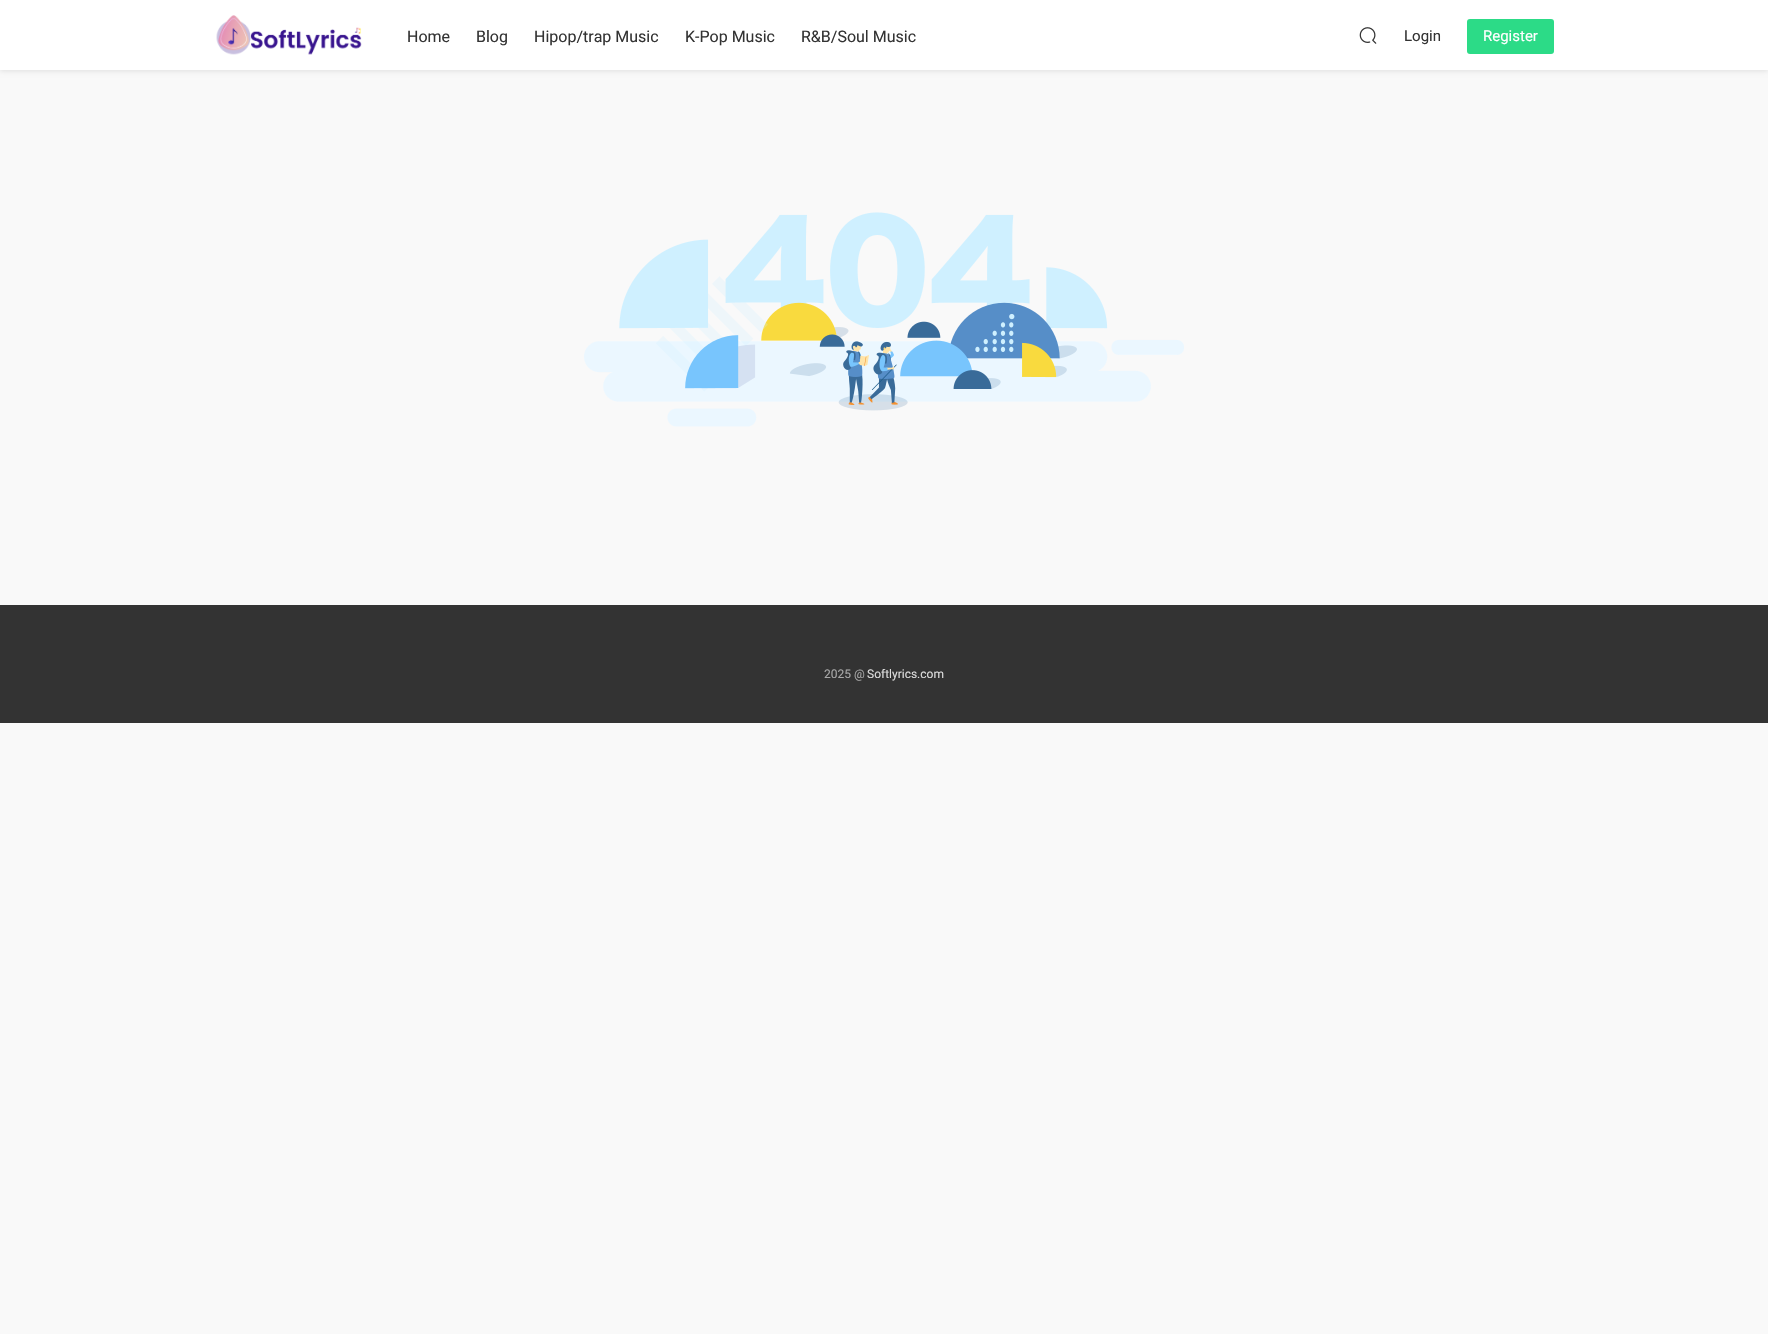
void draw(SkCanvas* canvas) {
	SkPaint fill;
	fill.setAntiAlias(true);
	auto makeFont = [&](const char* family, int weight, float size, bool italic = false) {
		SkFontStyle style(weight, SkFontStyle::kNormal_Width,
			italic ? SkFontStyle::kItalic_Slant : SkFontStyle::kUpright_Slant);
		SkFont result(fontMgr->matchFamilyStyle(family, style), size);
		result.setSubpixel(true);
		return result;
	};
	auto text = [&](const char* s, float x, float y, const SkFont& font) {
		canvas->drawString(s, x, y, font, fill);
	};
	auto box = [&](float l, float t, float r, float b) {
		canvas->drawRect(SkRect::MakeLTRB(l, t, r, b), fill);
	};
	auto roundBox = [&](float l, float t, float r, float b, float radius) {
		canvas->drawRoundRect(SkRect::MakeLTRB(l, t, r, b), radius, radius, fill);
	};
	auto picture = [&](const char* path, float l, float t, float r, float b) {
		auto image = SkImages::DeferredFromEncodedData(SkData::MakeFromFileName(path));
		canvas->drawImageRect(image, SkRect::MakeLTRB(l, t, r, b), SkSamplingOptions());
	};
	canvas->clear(0xFFF9F9F9);
	fill.setColor(0x1A000000);
	fill.setMaskFilter(SkMaskFilter::MakeBlur(kNormal_SkBlurStyle, 2.5f));
	canvas->drawRect(SkRect::MakeLTRB(0, 1, 1768, 71), fill);
	fill.setMaskFilter(nullptr);
	fill.setColor(0xFFFFFFFF);
	box(0, 0, 1768, 70);
	picture("image0.png", 216, 15, 362, 55);
	picture("image1.png", 1359, 27, 1377, 44);
	fill.setColor(0xFF2CDB87);
	roundBox(1467, 19, 1554, 54, 3);
	picture("image2.png", 584, 212, 1184, 427);
	fill.setColor(0xFF333333);
	box(0, 605, 1768, 723);
	auto font1 = makeFont("Roboto", 400, 16);
	text("Home", 407, 42, font1);
	text("Blog", 476, 42, font1);
	text("Hipop/trap Music", 534, 42, font1);
	text("K-Pop Music", 685, 42, font1);
	text("R&B/Soul Music", 801, 42, font1);
	auto font2 = makeFont("Roboto", 400, 15);
	text("Login", 1404, 41, font2);
	fill.setColor(0xFFFFFFFF);
	text("Register", 1483, 41, font2);
	auto font3 = makeFont("Roboto", 400, 12);
	fill.setColor(0xFFA7A7A7);
	text("2025 @", 824, 678, font3);
	fill.setColor(0xFFDCDCDC);
	text("Softlyrics.com", 867, 678, font3);
}
